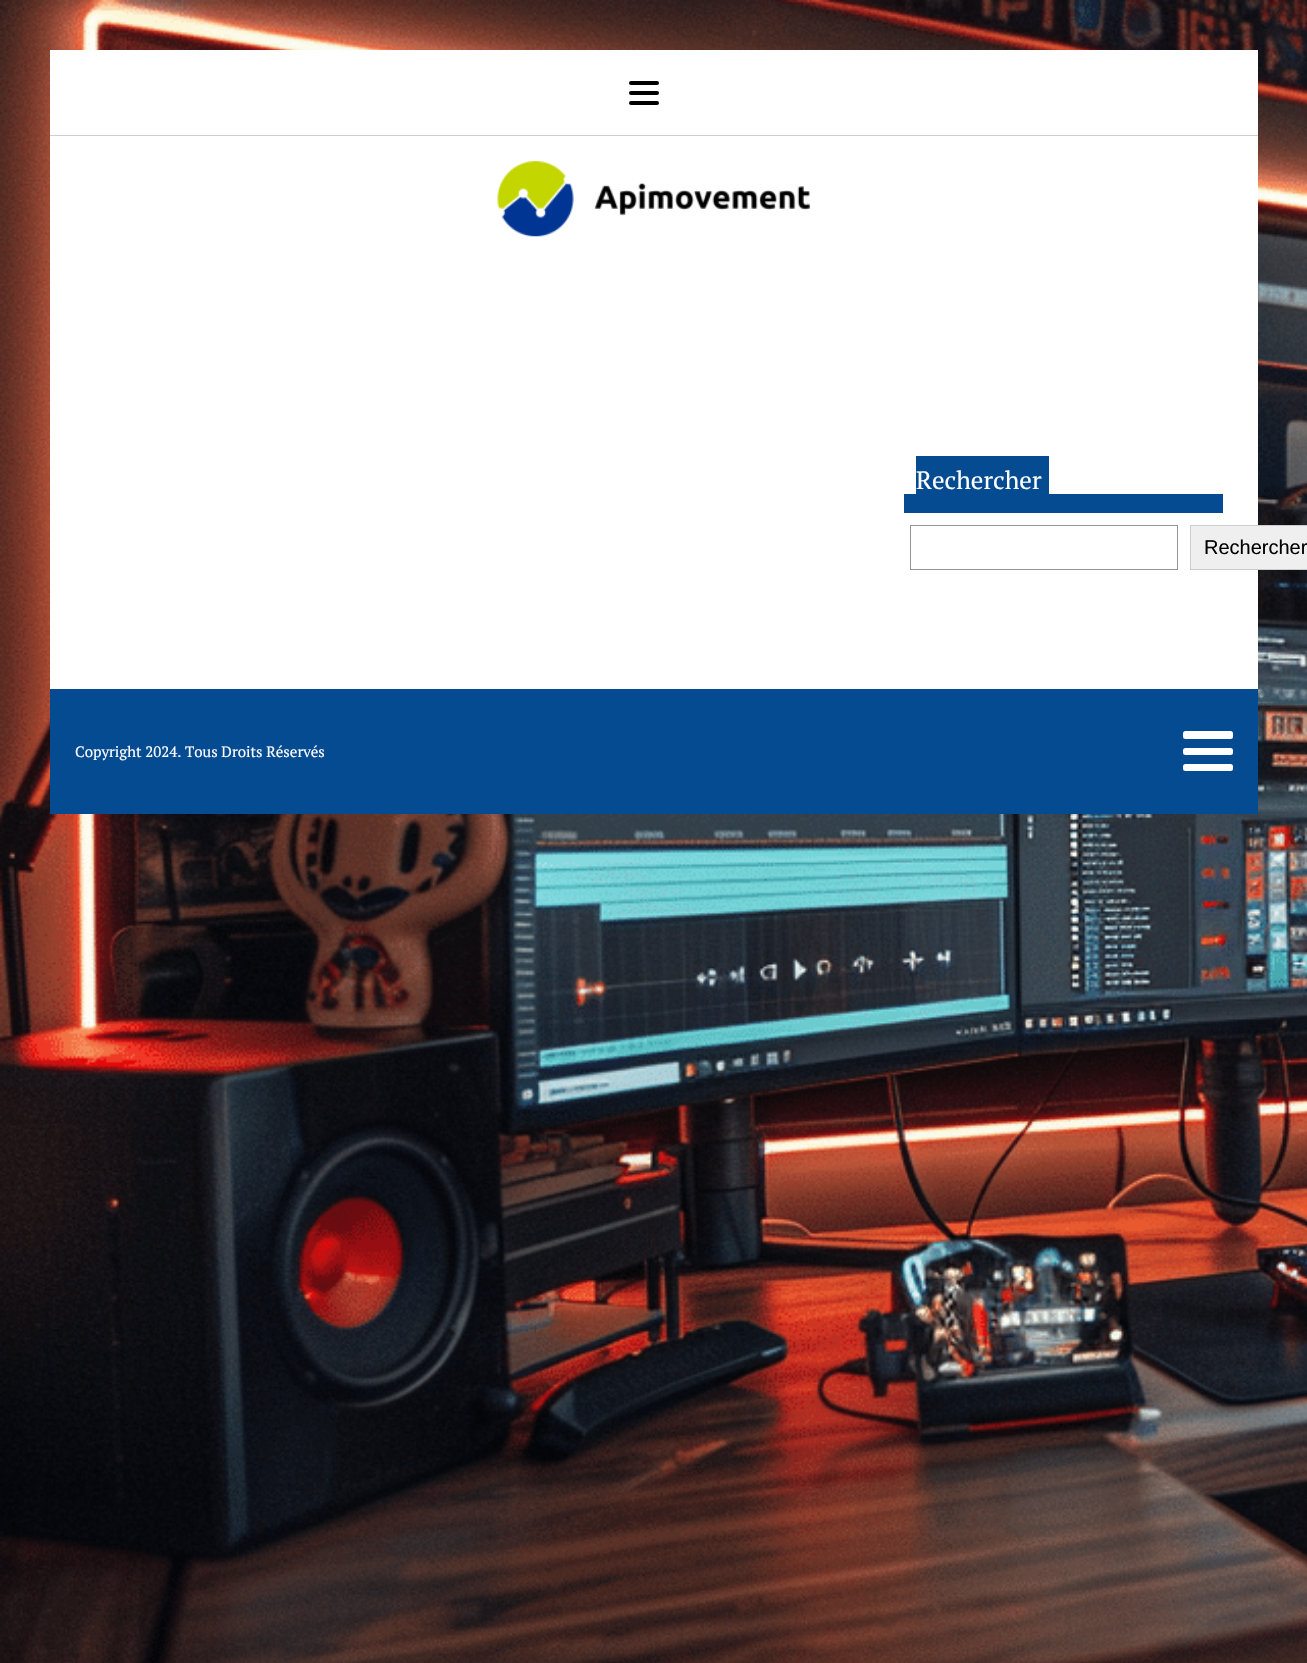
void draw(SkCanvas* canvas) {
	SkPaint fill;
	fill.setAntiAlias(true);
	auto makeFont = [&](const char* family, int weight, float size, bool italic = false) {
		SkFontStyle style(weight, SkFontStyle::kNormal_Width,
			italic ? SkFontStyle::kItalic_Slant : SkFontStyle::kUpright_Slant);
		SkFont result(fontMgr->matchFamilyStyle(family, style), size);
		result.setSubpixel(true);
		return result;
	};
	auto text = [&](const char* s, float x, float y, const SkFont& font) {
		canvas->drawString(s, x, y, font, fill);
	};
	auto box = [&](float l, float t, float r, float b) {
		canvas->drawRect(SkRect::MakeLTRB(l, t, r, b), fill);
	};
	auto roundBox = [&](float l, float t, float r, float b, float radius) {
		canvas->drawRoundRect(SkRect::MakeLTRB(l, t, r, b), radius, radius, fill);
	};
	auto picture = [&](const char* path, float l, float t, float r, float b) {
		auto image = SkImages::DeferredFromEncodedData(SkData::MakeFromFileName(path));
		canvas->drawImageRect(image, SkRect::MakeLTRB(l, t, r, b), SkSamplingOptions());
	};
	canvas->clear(0xFFFFFFFF);
	picture("image0.png", 0, 0, 1307, 1663);
	fill.setColor(0xFFFFFFFF);
	box(50, 50, 1258, 689);
	fill.setColor(0xFFCECECE);
	box(50, 135, 1258, 136);
	fill.setColor(0xFF000000);
	roundBox(629, 81, 659, 85, 2);
	roundBox(629, 91, 659, 95, 2);
	roundBox(629, 101, 659, 105, 2);
	picture("image1.png", 497, 161, 810, 237);
	fill.setColor(0xFF054B92);
	box(904, 494, 1223, 513);
	box(916, 456, 1049, 494);
	fill.setStyle(SkPaint::kStroke_Style);
	fill.setStrokeWidth(1);
	fill.setColor(0xFF949494);
	canvas->drawRect(SkRect::MakeLTRB(910.5f, 525.5f, 1177.5f, 569.5f), fill);
	fill.setStyle(SkPaint::kFill_Style);
	fill.setColor(0xFFEFEFEF);
	canvas->drawRect(SkRect::MakeLTRB(1190.5f, 525.5f, 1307.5f, 569.5f), fill);
	fill.setStyle(SkPaint::kStroke_Style);
	fill.setColor(0xFFCCCCCC);
	canvas->drawRect(SkRect::MakeLTRB(1190.5f, 525.5f, 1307.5f, 569.5f), fill);
	fill.setStyle(SkPaint::kFill_Style);
	fill.setColor(0xFF054B92);
	box(50, 689, 1258, 814);
	fill.setColor(0xFFFFFFFF);
	roundBox(1183, 731, 1233, 739, 2.5f);
	roundBox(1183, 748, 1233, 755, 2.5f);
	roundBox(1183, 764, 1233, 771, 2.5f);
	auto font1 = makeFont("PT Serif", 400, 25);
	text("Rechercher", 916, 489, font1);
	auto font2 = makeFont("Liberation Sans", 400, 20);
	fill.setColor(0xFF000000);
	text("Rechercher", 1204, 554, font2);
	auto font3 = makeFont("PT Serif", 400, 15);
	fill.setColor(0xFFFFFFFF);
	text("Copyright 2024. Tous Droits Réservés", 75, 757, font3);
}
